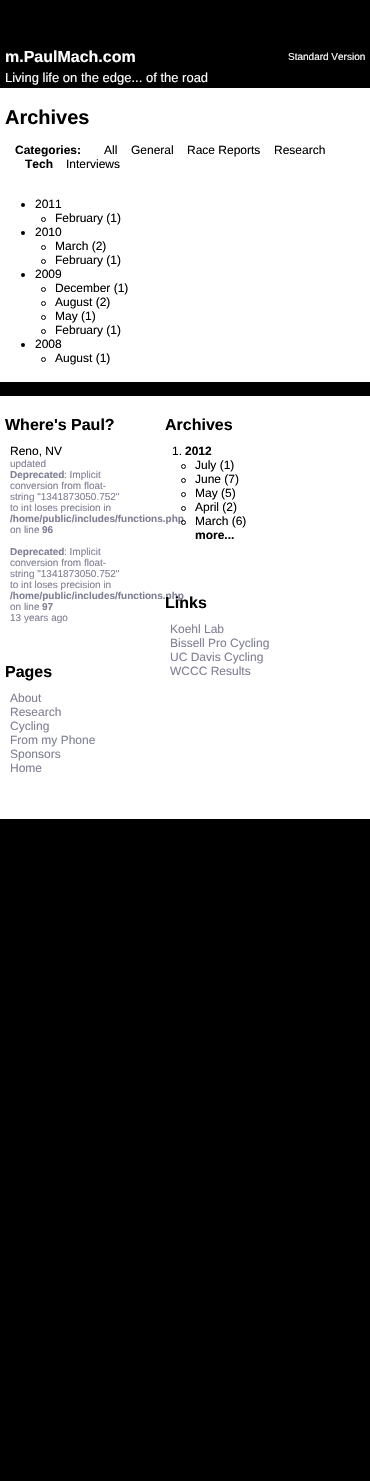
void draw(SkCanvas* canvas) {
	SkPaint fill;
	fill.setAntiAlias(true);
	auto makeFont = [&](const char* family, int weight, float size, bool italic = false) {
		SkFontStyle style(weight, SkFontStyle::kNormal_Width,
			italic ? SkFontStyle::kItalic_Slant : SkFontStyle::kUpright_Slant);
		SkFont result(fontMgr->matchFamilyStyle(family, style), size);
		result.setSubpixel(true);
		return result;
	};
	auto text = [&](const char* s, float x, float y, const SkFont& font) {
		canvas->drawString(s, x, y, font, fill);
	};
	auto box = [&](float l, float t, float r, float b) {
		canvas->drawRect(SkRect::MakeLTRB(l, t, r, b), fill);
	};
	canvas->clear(0xFF000000);
	fill.setColor(0xFFFFFFFF);
	box(0, 88, 370, 382);
	fill.setColor(0xFF000000);
	canvas->drawCircle(23, 205, 2, fill);
	fill.setStyle(SkPaint::kStroke_Style);
	fill.setStrokeWidth(1);
	canvas->drawCircle(43.5f, 219.5f, 2, fill);
	fill.setStyle(SkPaint::kFill_Style);
	canvas->drawCircle(23, 233, 2, fill);
	fill.setStyle(SkPaint::kStroke_Style);
	canvas->drawCircle(43.5f, 247.5f, 2, fill);
	canvas->drawCircle(43.5f, 261.5f, 2, fill);
	fill.setStyle(SkPaint::kFill_Style);
	canvas->drawCircle(23, 275, 2, fill);
	fill.setStyle(SkPaint::kStroke_Style);
	canvas->drawCircle(43.5f, 289.5f, 2, fill);
	canvas->drawCircle(43.5f, 303.5f, 2, fill);
	canvas->drawCircle(43.5f, 317.5f, 2, fill);
	canvas->drawCircle(43.5f, 331.5f, 2, fill);
	fill.setStyle(SkPaint::kFill_Style);
	canvas->drawCircle(23, 345, 2, fill);
	fill.setStyle(SkPaint::kStroke_Style);
	canvas->drawCircle(43.5f, 359.5f, 2, fill);
	fill.setStyle(SkPaint::kFill_Style);
	fill.setColor(0xFFFFFFFF);
	box(0, 396, 370, 819);
	fill.setStyle(SkPaint::kStroke_Style);
	fill.setColor(0xFF000000);
	canvas->drawCircle(183.5f, 466.5f, 2, fill);
	canvas->drawCircle(183.5f, 480.5f, 2, fill);
	canvas->drawCircle(183.5f, 494.5f, 2, fill);
	canvas->drawCircle(183.5f, 508.5f, 2, fill);
	auto font1 = makeFont("Liberation Sans", 700, 16);
	fill.setStyle(SkPaint::kFill_Style);
	fill.setColor(0xFFFFFFFF);
	text("m.PaulMach.com", 5, 62, font1);
	auto font2 = makeFont("Liberation Sans", 400, 10);
	text("Standard Version", 288, 60, font2);
	auto font3 = makeFont("Liberation Sans", 400, 13);
	text("Living life on the edge... of the road", 5, 82, font3);
	auto font4 = makeFont("Liberation Sans", 700, 20);
	fill.setColor(0xFF000000);
	text("Archives", 5, 124, font4);
	auto font5 = makeFont("Liberation Sans", 700, 12);
	text("Categories:", 15, 154, font5);
	auto font6 = makeFont("Liberation Sans", 400, 12);
	text("All", 104, 154, font6);
	text("General", 131, 154, font6);
	text("Race Reports", 187, 154, font6);
	text("Research", 274, 154, font6);
	text("Tech", 25, 168, font5);
	text("Interviews", 66, 168, font6);
	text("2011", 35, 208, font6);
	text("February (1)", 55, 222, font6);
	text("2010", 35, 236, font6);
	text("March (2)", 55, 250, font6);
	text("February (1)", 55, 264, font6);
	text("2009", 35, 278, font6);
	text("December (1)", 55, 292, font6);
	text("August (2)", 55, 306, font6);
	text("May (1)", 55, 320, font6);
	text("February (1)", 55, 334, font6);
	text("2008", 35, 348, font6);
	text("August (1)", 55, 362, font6);
	text("Where's Paul?", 5, 430, font1);
	text("Reno, NV", 10, 455, font6);
	fill.setColor(0xFF808095);
	text("updated", 10, 467, font2);
	auto font7 = makeFont("Liberation Sans", 700, 10);
	text("Deprecated", 10, 478, font7);
	text(": Implicit", 64, 478, font2);
	text("conversion from float-", 10, 489, font2);
	text("string \"1341873050.752\"", 10, 500, font2);
	text("to int loses precision in", 10, 511, font2);
	text("/home/public/includes/functions.php", 10, 522, font7);
	text("on line", 10, 533, font2);
	text("96", 42, 533, font7);
	text("Deprecated", 10, 555, font7);
	text(": Implicit", 64, 555, font2);
	text("conversion from float-", 10, 566, font2);
	text("string \"1341873050.752\"", 10, 577, font2);
	text("to int loses precision in", 10, 588, font2);
	text("/home/public/includes/functions.php", 10, 599, font7);
	text("on line", 10, 610, font2);
	text("97", 42, 610, font7);
	text("13 years ago", 10, 621, font2);
	fill.setColor(0xFF000000);
	text("Pages", 5, 677, font1);
	fill.setColor(0xFF808095);
	text("About", 10, 702, font6);
	text("Research", 10, 716, font6);
	text("Cycling", 10, 730, font6);
	text("From my Phone", 10, 744, font6);
	text("Sponsors", 10, 758, font6);
	text("Home", 10, 772, font6);
	fill.setColor(0xFF000000);
	text("Archives", 165, 430, font1);
	text("1.", 172, 455, font6);
	text("2012", 185, 455, font5);
	text("July (1)", 195, 469, font6);
	text("June (7)", 195, 483, font6);
	text("May (5)", 195, 497, font6);
	text("April (2)", 195, 511, font6);
	fill.setStyle(SkPaint::kStroke_Style);
	canvas->drawCircle(183.5f, 522.5f, 2, fill);
	fill.setStyle(SkPaint::kFill_Style);
	text("March (6)", 195, 525, font6);
	text("more...", 195, 539, font5);
	text("Links", 165, 608, font1);
	fill.setColor(0xFF808095);
	text("Koehl Lab", 170, 633, font6);
	text("Bissell Pro Cycling", 170, 647, font6);
	text("UC Davis Cycling", 170, 661, font6);
	text("WCCC Results", 170, 675, font6);
}
